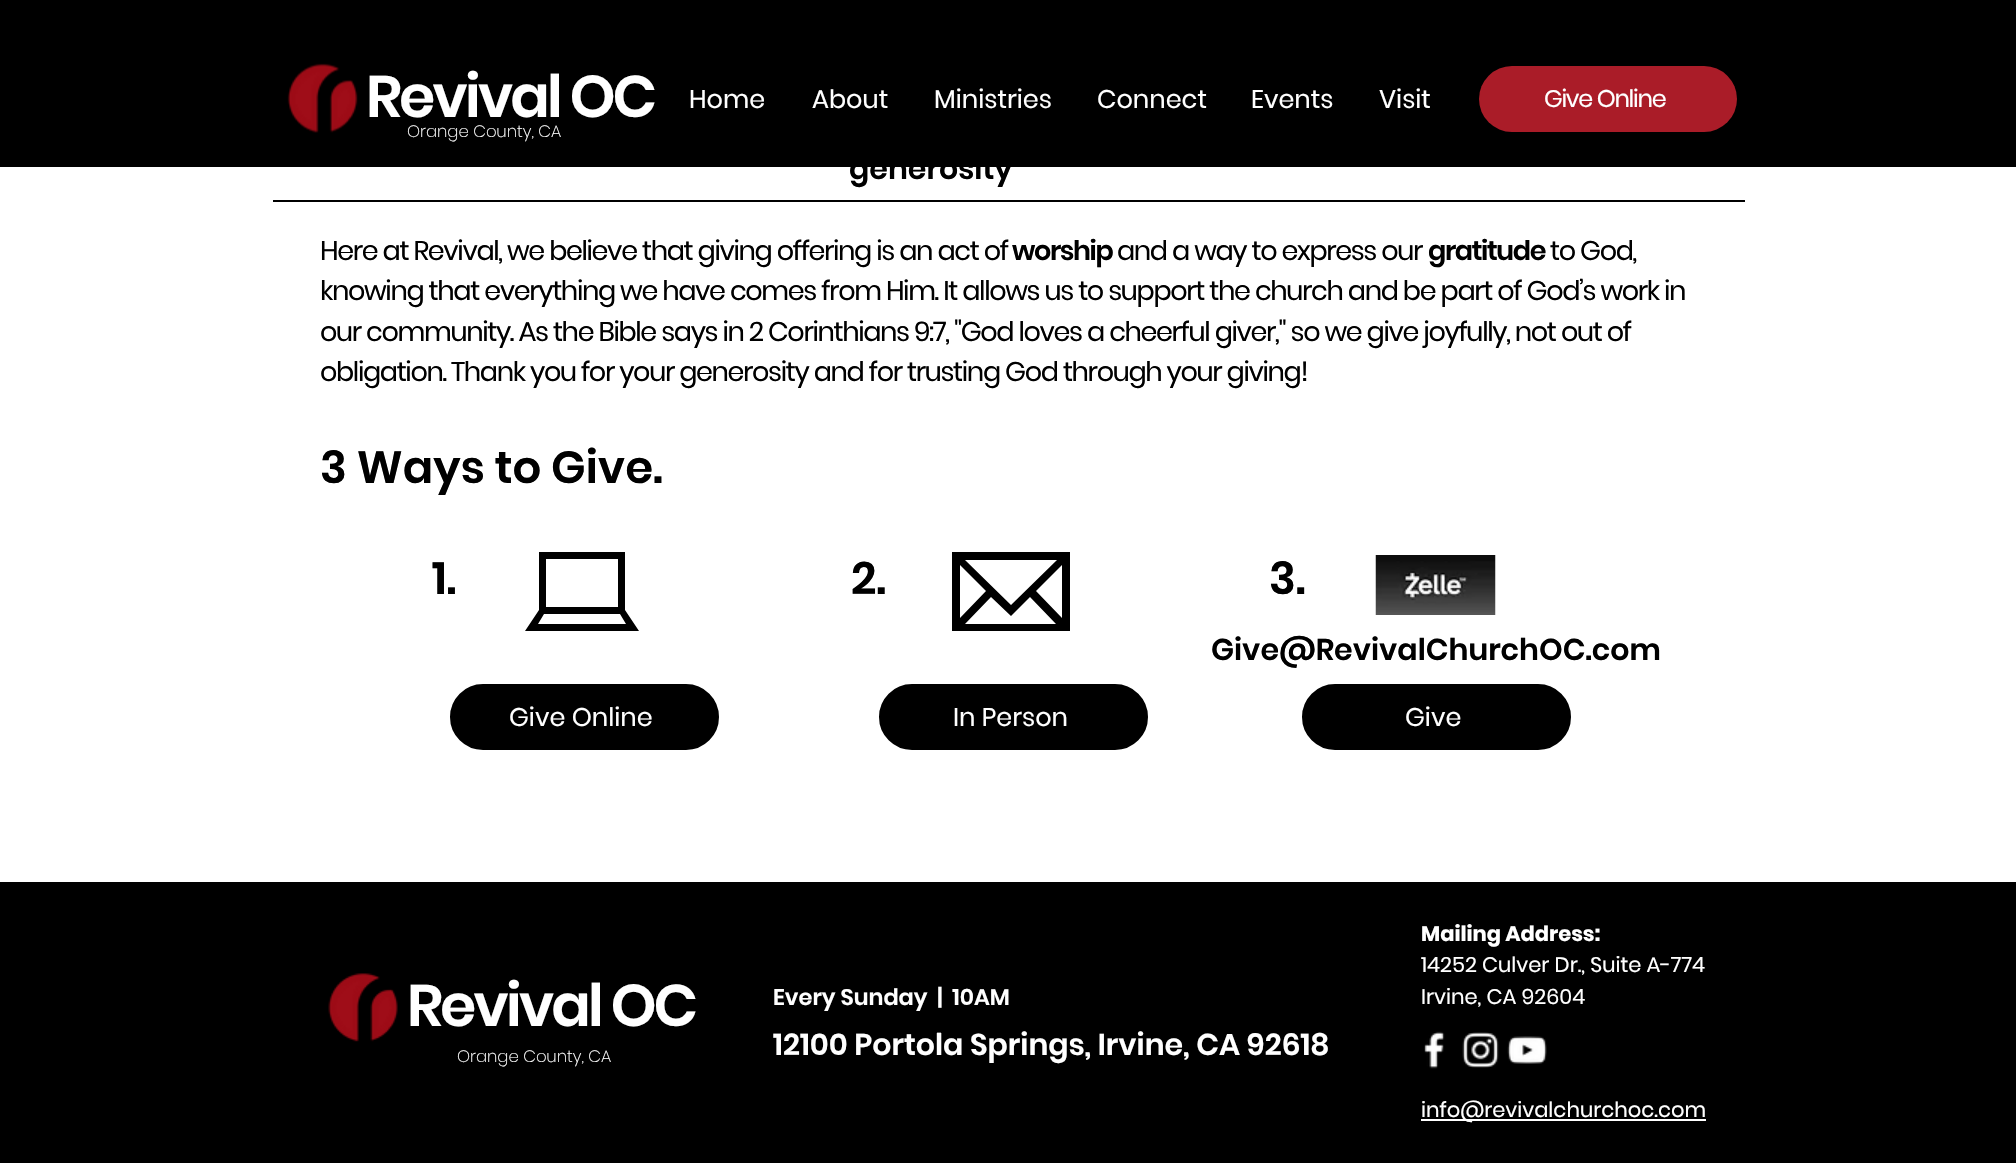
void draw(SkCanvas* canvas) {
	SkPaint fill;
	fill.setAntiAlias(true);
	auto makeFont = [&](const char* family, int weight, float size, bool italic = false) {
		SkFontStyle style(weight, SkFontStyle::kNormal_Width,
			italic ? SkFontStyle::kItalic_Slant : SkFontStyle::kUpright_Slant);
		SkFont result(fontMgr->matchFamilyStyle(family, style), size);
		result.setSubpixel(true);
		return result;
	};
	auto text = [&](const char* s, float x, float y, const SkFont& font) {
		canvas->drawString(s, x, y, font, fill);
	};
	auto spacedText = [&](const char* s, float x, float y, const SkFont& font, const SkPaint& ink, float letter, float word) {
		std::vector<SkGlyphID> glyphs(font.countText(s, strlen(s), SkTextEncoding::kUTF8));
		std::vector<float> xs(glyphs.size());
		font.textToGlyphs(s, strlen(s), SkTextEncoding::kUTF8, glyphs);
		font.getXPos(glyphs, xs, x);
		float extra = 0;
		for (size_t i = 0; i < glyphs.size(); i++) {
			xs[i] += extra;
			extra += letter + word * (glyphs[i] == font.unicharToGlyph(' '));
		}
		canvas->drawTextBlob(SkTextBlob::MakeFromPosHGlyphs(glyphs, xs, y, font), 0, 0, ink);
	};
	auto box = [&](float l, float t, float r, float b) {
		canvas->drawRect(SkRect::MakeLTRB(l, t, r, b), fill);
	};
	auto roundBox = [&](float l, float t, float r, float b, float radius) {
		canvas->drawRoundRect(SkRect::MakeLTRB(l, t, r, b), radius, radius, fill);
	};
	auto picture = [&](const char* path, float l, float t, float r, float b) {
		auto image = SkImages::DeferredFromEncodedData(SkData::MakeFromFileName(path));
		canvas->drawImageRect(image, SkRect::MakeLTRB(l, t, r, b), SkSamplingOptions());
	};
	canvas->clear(0xFFFFFFFF);
	fill.setColor(0xFF000000);
	box(0, 0, 2016, 167);
	picture("image0.png", 287, 63, 358, 133);
	fill.setColor(0xFFAA1C28);
	roundBox(1479, 66, 1737, 132, 33);
	fill.setColor(0xFF000000);
	box(273, 200, 1745, 202);
	canvas->drawPath(SkPathBuilder().moveTo(639, 631).lineTo(625, 610).lineTo(625, 552).lineTo(539, 552).lineTo(539, 610).lineTo(525, 631).close().moveTo(538, 624).lineTo(544, 614).lineTo(620, 614).lineTo(626, 624).close().moveTo(546, 559).lineTo(618, 559).lineTo(618, 607).lineTo(546, 607).close().detach(), fill);
	canvas->drawPath(SkPathBuilder().moveTo(952, 552).lineTo(952, 631).lineTo(1070, 631).lineTo(1070, 552).close().moveTo(1011, 605).lineTo(965, 560).lineTo(1057, 560).close().moveTo(986, 591).lineTo(960, 618).lineTo(960, 565).close().moveTo(991, 597).lineTo(1011, 616).lineTo(1030, 597).lineTo(1056, 624).lineTo(965, 624).close().moveTo(1036, 591).lineTo(1062, 565).lineTo(1062, 618).close().detach(), fill);
	picture("image1.png", 1375, 555, 1496, 615);
	canvas->drawRoundRect(SkRect::MakeLTRB(451, 685, 718, 749), 32, 32, fill);
	fill.setStyle(SkPaint::kStroke_Style);
	fill.setStrokeWidth(2);
	canvas->drawRoundRect(SkRect::MakeLTRB(451, 685, 718, 749), 32, 32, fill);
	fill.setStyle(SkPaint::kFill_Style);
	canvas->drawRoundRect(SkRect::MakeLTRB(880, 685, 1147, 749), 32, 32, fill);
	fill.setStyle(SkPaint::kStroke_Style);
	canvas->drawRoundRect(SkRect::MakeLTRB(880, 685, 1147, 749), 32, 32, fill);
	fill.setStyle(SkPaint::kFill_Style);
	canvas->drawRoundRect(SkRect::MakeLTRB(1303, 685, 1570, 749), 32, 32, fill);
	fill.setStyle(SkPaint::kStroke_Style);
	canvas->drawRoundRect(SkRect::MakeLTRB(1303, 685, 1570, 749), 32, 32, fill);
	fill.setStyle(SkPaint::kFill_Style);
	box(0, 882, 2016, 1163);
	picture("image2.png", 328, 973, 398, 1042);
	picture("image3.png", 1424, 1031, 1445, 1069);
	picture("image4.png", 1462, 1032, 1499, 1068);
	picture("image5.png", 1507, 1036, 1547, 1064);
	fill.setColor(0xFFFFFFFF);
	box(1421, 1119, 1706, 1121);
	auto font1 = makeFont("Poppins", 600, 58.5f);
	spacedText("Revival OC", 366, 117, font1, fill, -3, 0);
	auto font2 = makeFont("Poppins", 400, 25.5f);
	text("Home", 689, 108, font2);
	text("About", 812, 108, font2);
	text("Ministries", 934, 108, font2);
	text("Connect", 1097, 108, font2);
	text("Events", 1251, 108, font2);
	text("Visit", 1379, 108, font2);
	auto font3 = makeFont("Poppins", 400, 24);
	spacedText("Give Online", 1544, 107, font3, fill, -1.25f, 0);
	auto font4 = makeFont("Poppins", 200, 16.5f);
	text("Orange County, CA", 407, 137, font4);
	auto font5 = makeFont("Poppins", 600, 30);
	fill.setColor(0xFF000000);
	text("generosity", 849, 179, font5);
	auto font6 = makeFont("Poppins", 400, 27);
	spacedText("Here at Revival, we believe that giving offering is an act of", 320, 260, font6, fill, -1.35f, 0);
	auto font7 = makeFont("Poppins", 600, 27);
	spacedText("worship", 1012, 260, font7, fill, -1.35f, 0);
	spacedText("and a way to express our", 1117, 260, font6, fill, -1.35f, 0);
	spacedText("gratitude", 1428, 260, font7, fill, -1.35f, 0);
	spacedText("to God,", 1550, 260, font6, fill, -1.35f, 0);
	spacedText("knowing that everything we have comes from Him. It allows us to support the church and be part of God’s work in", 320, 300, font6, fill, -1.35f, 0);
	spacedText("our community. As the Bible says in 2 Corinthians 9:7, \"God loves a cheerful giver,\" so we give joyfully, not out of", 320, 341, font6, fill, -1.35f, 0);
	spacedText("obligation. Thank you for your generosity and for trusting God through your giving!", 320, 381, font6, fill, -1.35f, 0);
	auto font8 = makeFont("Poppins", 600, 45);
	text("3 Ways to Give.", 320, 483, font8);
	text("1.", 432, 594, font8);
	text("2.", 851, 594, font8);
	text("3.", 1269, 594, font8);
	text("Give@RevivalChurchOC.com", 1211, 660, font5);
	fill.setColor(0xFFFFFFFF);
	text("Give Online", 509, 726, font2);
	text("In Person", 953, 726, font2);
	text("Give", 1405, 726, font2);
	spacedText("Revival OC", 407, 1026, font1, fill, -3, 0);
	auto font9 = makeFont("Poppins", 600, 22.5f);
	text("Every Sunday  |  10AM", 773, 1005, font9);
	auto font10 = makeFont("Poppins", 700, 21);
	text("Mailing Address:", 1421, 941, font10);
	auto font11 = makeFont("Poppins", 400, 21);
	text("14252 Culver Dr., Suite A-774", 1421, 972, font11);
	text("Irvine, CA 92604", 1421, 1004, font11);
	text("Orange County, CA", 457, 1062, font4);
	text("12100 Portola Springs, Irvine, CA 92618", 773, 1055, font5);
	text("info@revivalchurchoc.com", 1421, 1117, font11);
}
